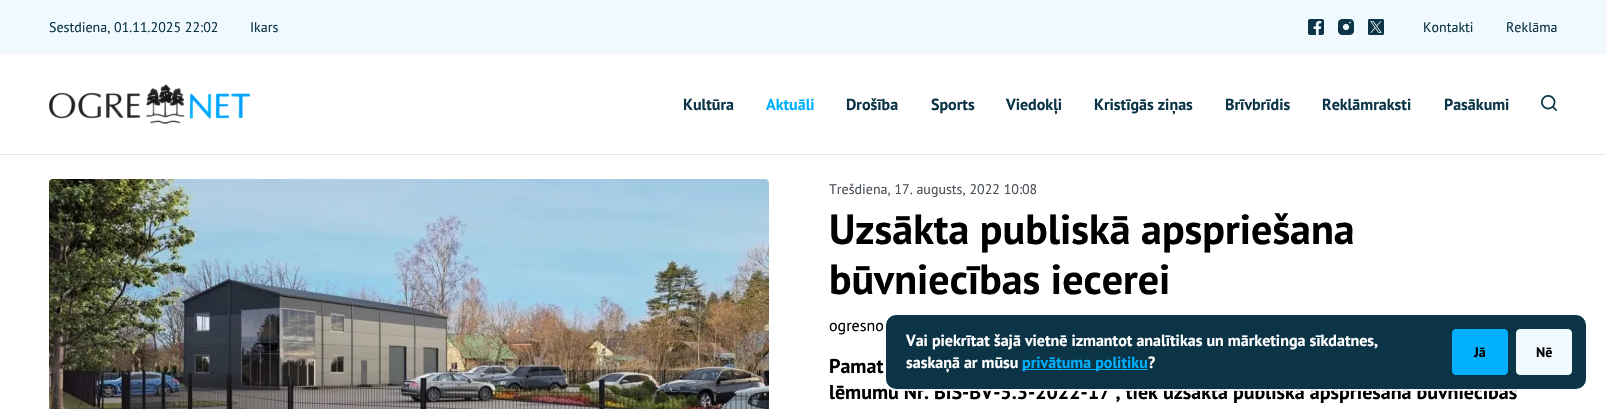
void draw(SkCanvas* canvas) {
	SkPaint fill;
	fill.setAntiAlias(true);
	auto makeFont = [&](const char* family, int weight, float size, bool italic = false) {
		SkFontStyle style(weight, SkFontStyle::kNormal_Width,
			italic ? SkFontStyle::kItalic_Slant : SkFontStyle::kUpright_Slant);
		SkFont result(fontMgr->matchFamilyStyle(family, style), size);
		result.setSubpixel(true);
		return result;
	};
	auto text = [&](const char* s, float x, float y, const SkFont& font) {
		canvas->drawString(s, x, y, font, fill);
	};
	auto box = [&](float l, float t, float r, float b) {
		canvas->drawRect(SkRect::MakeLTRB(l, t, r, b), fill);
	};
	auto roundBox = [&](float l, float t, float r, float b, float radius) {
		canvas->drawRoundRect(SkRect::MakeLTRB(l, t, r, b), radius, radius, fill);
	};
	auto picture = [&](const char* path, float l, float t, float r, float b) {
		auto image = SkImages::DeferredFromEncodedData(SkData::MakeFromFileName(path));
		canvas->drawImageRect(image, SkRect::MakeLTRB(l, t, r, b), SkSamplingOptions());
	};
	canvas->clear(0xFFFFFFFF);
	fill.setColor(0xFFF0FAFE);
	box(0, 0, 1606, 54);
	picture("image0.png", 1308, 19, 1324, 35);
	picture("image1.png", 1338, 19, 1354, 35);
	picture("image2.png", 1368, 19, 1384, 35);
	picture("image3.png", 49, 84, 250, 124);
	picture("image4.png", 1541, 95, 1557, 111);
	fill.setColor(0xFFE6E6E6);
	box(0, 154, 1606, 155);
	picture("image5.png", 49, 179, 769, 409);
	auto font1 = makeFont("PT Sans", 400, 14);
	fill.setColor(0xFF0B3446);
	text("Sestdiena, 01.11.2025 22:02", 49, 32, font1);
	text("Ikars", 250, 32, font1);
	text("Kontakti", 1423, 32, font1);
	text("Reklāma", 1506, 32, font1);
	auto font2 = makeFont("PT Sans", 700, 16);
	text("Kultūra", 683, 110, font2);
	fill.setColor(0xFF00B0FD);
	text("Aktuāli", 766, 110, font2);
	fill.setColor(0xFF0B3446);
	text("Drošība", 846, 110, font2);
	text("Sports", 931, 110, font2);
	text("Viedokļi", 1006, 110, font2);
	text("Kristīgās ziņas", 1094, 110, font2);
	text("Brīvbrīdis", 1225, 110, font2);
	text("Reklāmraksti", 1322, 110, font2);
	text("Pasākumi", 1444, 110, font2);
	fill.setColor(0xFF495057);
	text("Trešdiena, 17. augusts, 2022 10:08", 829, 194, font1);
	auto font3 = makeFont("PT Sans", 700, 42);
	fill.setColor(0xFF000000);
	text("Uzsākta publiskā apspriešana", 829, 244, font3);
	text("būvniecības iecerei", 829, 294, font3);
	auto font4 = makeFont("PT Sans", 400, 16);
	text("ogresno", 829, 331, font4);
	auto font5 = makeFont("PT Sans", 700, 20);
	text("Pamat", 829, 373, font5);
	text("lēmumu Nr. BIS-BV-5.3-2022-17 , tiek uzsākta publiskā apspriešana būvniecības", 829, 399, font5);
	fill.setStyle(SkPaint::kStroke_Style);
	fill.setStrokeWidth(2);
	fill.setColor(0xE6FFFFFF);
	canvas->drawRoundRect(SkRect::MakeLTRB(885, 314, 1587, 390), 11, 11, fill);
	fill.setStyle(SkPaint::kFill_Style);
	fill.setColor(0xFF0B3446);
	roundBox(886, 315, 1586, 389, 10);
	fill.setColor(0xFFFFFFFF);
	text("Vai piekrītat šajā vietnē izmantot analītikas un mārketinga sīkdatnes,", 906, 346, font2);
	text("saskaņā ar mūsu", 906, 368, font2);
	fill.setColor(0xFF00B0FD);
	box(1022, 369, 1148, 370);
	text("privātuma politiku", 1022, 368, font2);
	fill.setColor(0xFFFFFFFF);
	text("?", 1148, 368, font2);
	fill.setColor(0xFF00B0FD);
	canvas->drawRoundRect(SkRect::MakeLTRB(1452.5f, 329.5f, 1507.5f, 374.5f), 3.5f, 3.5f, fill);
	fill.setStyle(SkPaint::kStroke_Style);
	fill.setStrokeWidth(1);
	canvas->drawRoundRect(SkRect::MakeLTRB(1452.5f, 329.5f, 1507.5f, 374.5f), 3.5f, 3.5f, fill);
	auto font6 = makeFont("PT Sans", 700, 14);
	fill.setStyle(SkPaint::kFill_Style);
	fill.setColor(0xFF000000);
	text("Jā", 1474, 357, font6);
	fill.setColor(0xFFF0FAFE);
	canvas->drawRoundRect(SkRect::MakeLTRB(1516.5f, 329.5f, 1571.5f, 374.5f), 3.5f, 3.5f, fill);
	fill.setStyle(SkPaint::kStroke_Style);
	canvas->drawRoundRect(SkRect::MakeLTRB(1516.5f, 329.5f, 1571.5f, 374.5f), 3.5f, 3.5f, fill);
	fill.setStyle(SkPaint::kFill_Style);
	fill.setColor(0xFF000000);
	text("Nē", 1536, 357, font6);
}
